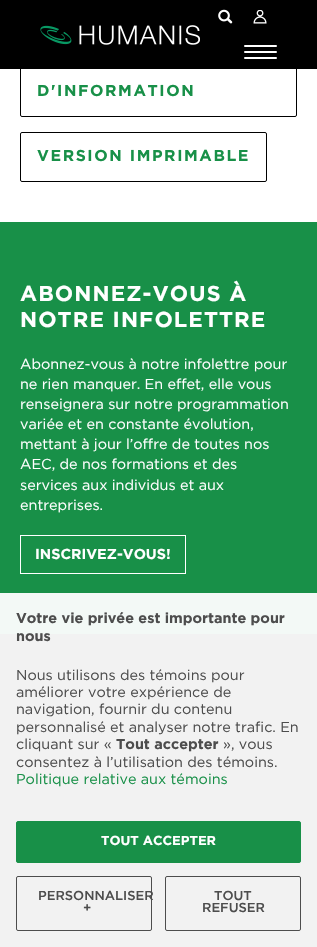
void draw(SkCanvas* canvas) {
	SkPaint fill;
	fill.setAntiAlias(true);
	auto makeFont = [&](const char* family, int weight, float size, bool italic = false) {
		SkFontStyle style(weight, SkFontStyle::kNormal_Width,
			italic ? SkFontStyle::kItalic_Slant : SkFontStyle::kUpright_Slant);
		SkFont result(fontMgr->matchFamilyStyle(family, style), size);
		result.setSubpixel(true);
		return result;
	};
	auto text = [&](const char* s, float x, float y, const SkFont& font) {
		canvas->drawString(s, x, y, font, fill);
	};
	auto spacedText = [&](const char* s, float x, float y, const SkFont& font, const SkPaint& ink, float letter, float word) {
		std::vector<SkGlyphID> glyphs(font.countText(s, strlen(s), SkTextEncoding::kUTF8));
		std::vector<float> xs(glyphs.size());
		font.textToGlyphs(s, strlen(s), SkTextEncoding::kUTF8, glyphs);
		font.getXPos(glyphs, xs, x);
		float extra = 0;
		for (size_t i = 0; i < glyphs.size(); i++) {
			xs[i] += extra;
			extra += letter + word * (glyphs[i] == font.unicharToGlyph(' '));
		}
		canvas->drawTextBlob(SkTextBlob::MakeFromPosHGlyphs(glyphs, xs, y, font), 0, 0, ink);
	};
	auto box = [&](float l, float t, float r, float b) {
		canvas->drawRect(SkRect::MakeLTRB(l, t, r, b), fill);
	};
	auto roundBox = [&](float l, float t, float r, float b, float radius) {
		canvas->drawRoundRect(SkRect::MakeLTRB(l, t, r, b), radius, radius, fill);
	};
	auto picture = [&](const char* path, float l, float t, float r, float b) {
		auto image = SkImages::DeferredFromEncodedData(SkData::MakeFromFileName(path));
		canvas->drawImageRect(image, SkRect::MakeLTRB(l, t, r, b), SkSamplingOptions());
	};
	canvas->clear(0xFFFFFFFF);
	fill.setStyle(SkPaint::kStroke_Style);
	fill.setStrokeWidth(1);
	fill.setColor(0xFF000000);
	canvas->drawRoundRect(SkRect::MakeLTRB(20.5f, 46.5f, 296.5f, 116.5f), 1.5f, 1.5f, fill);
	fill.setStyle(SkPaint::kFill_Style);
	box(0, 0, 317, 69);
	picture("image0.png", 40, 25, 200, 45);
	picture("image1.png", 218, 9, 233, 24);
	picture("image2.png", 253, 10, 267, 24);
	fill.setColor(0xFFFFFFFF);
	roundBox(244, 45, 277, 47, 1);
	roundBox(244, 51, 277, 53, 1);
	roundBox(244, 57, 277, 59, 1);
	fill.setStyle(SkPaint::kStroke_Style);
	fill.setColor(0xFF000000);
	canvas->drawRoundRect(SkRect::MakeLTRB(20.5f, 132.5f, 266.5f, 181.5f), 1.5f, 1.5f, fill);
	fill.setStyle(SkPaint::kFill_Style);
	fill.setColor(0xFF189048);
	box(0, 222, 317, 593);
	fill.setColor(0xFFF3F9F6);
	box(0, 593, 317, 634);
	fill.setStyle(SkPaint::kStroke_Style);
	fill.setColor(0xFFFFFFFF);
	canvas->drawRect(SkRect::MakeLTRB(20.5f, 535.5f, 185.5f, 573.5f), fill);
	fill.setStyle(SkPaint::kFill_Style);
	fill.setColor(0xFFF2F2F2);
	box(0, 634, 317, 947);
	fill.setColor(0xFF189048);
	canvas->drawRoundRect(SkRect::MakeLTRB(16.5f, 821.5f, 300.5f, 862.5f), 1.5f, 1.5f, fill);
	fill.setStyle(SkPaint::kStroke_Style);
	canvas->drawRoundRect(SkRect::MakeLTRB(16.5f, 821.5f, 300.5f, 862.5f), 1.5f, 1.5f, fill);
	fill.setColor(0xFF4D4D4D);
	canvas->drawRoundRect(SkRect::MakeLTRB(16.5f, 876.5f, 151.5f, 930.5f), 1.5f, 1.5f, fill);
	canvas->drawRoundRect(SkRect::MakeLTRB(165.5f, 876.5f, 300.5f, 930.5f), 1.5f, 1.5f, fill);
	auto font1 = makeFont("Gotham", 700, 15.8f);
	fill.setStyle(SkPaint::kFill_Style);
	fill.setColor(0xFF189048);
	spacedText("D'INFORMATION", 37, 96, font1, fill, 1.6f, 0);
	spacedText("VERSION IMPRIMABLE", 37, 161, font1, fill, 1.6f, 0);
	auto font2 = makeFont("Gotham", 700, 21.6f);
	fill.setColor(0xFFFFFFFF);
	spacedText("ABONNEZ-VOUS À", 20, 301, font2, fill, 1.1f, 0);
	spacedText("NOTRE INFOLETTRE", 20, 327, font2, fill, 1.1f, 0);
	auto font3 = makeFont("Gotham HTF", 400, 14.4f);
	text("Abonnez-vous à notre infolettre pour", 20, 369, font3);
	text("ne rien manquer. En effet, elle vous", 20, 389, font3);
	text("renseignera sur notre programmation", 20, 409, font3);
	text("variée et en constante évolution,", 20, 429, font3);
	text("mettant à jour l’offre de toutes nos", 20, 449, font3);
	text("AEC, de nos formations et des", 20, 469, font3);
	text("services aux individus et aux", 20, 490, font3);
	text("entreprises.", 20, 510, font3);
	auto font4 = makeFont("Gotham", 700, 14.4f);
	text("INSCRIVEZ-VOUS!", 35, 559, font4);
	fill.setColor(0xFF4D4D4D);
	text("Votre vie privée est importante pour", 16, 623, font4);
	text("nous", 16, 641, font4);
	text("Nous utilisons des témoins pour", 16, 680, font3);
	text("améliorer votre expérience de", 16, 697, font3);
	text("navigation, fournir du contenu", 16, 714, font3);
	text("personnalisé et analyser notre trafic. En", 16, 732, font3);
	text("cliquant sur «", 16, 749, font3);
	text("Tout accepter", 116, 749, font4);
	text("», vous", 223, 749, font3);
	text("consentez à l’utilisation des témoins.", 16, 767, font3);
	fill.setColor(0xFF189048);
	text("Politique relative aux témoins", 16, 784, font3);
	auto font5 = makeFont("Gotham", 700, 13);
	fill.setColor(0xFFFFFFFF);
	text("TOUT ACCEPTER", 101, 845, font5);
	auto font6 = makeFont("Gotham", 500, 13);
	fill.setColor(0xFF4D4D4D);
	text("PERSONNALISER", 38, 900, font6);
	text("+", 83, 912, font6);
	text("TOUT", 214, 900, font6);
	text("REFUSER", 202, 912, font6);
}
